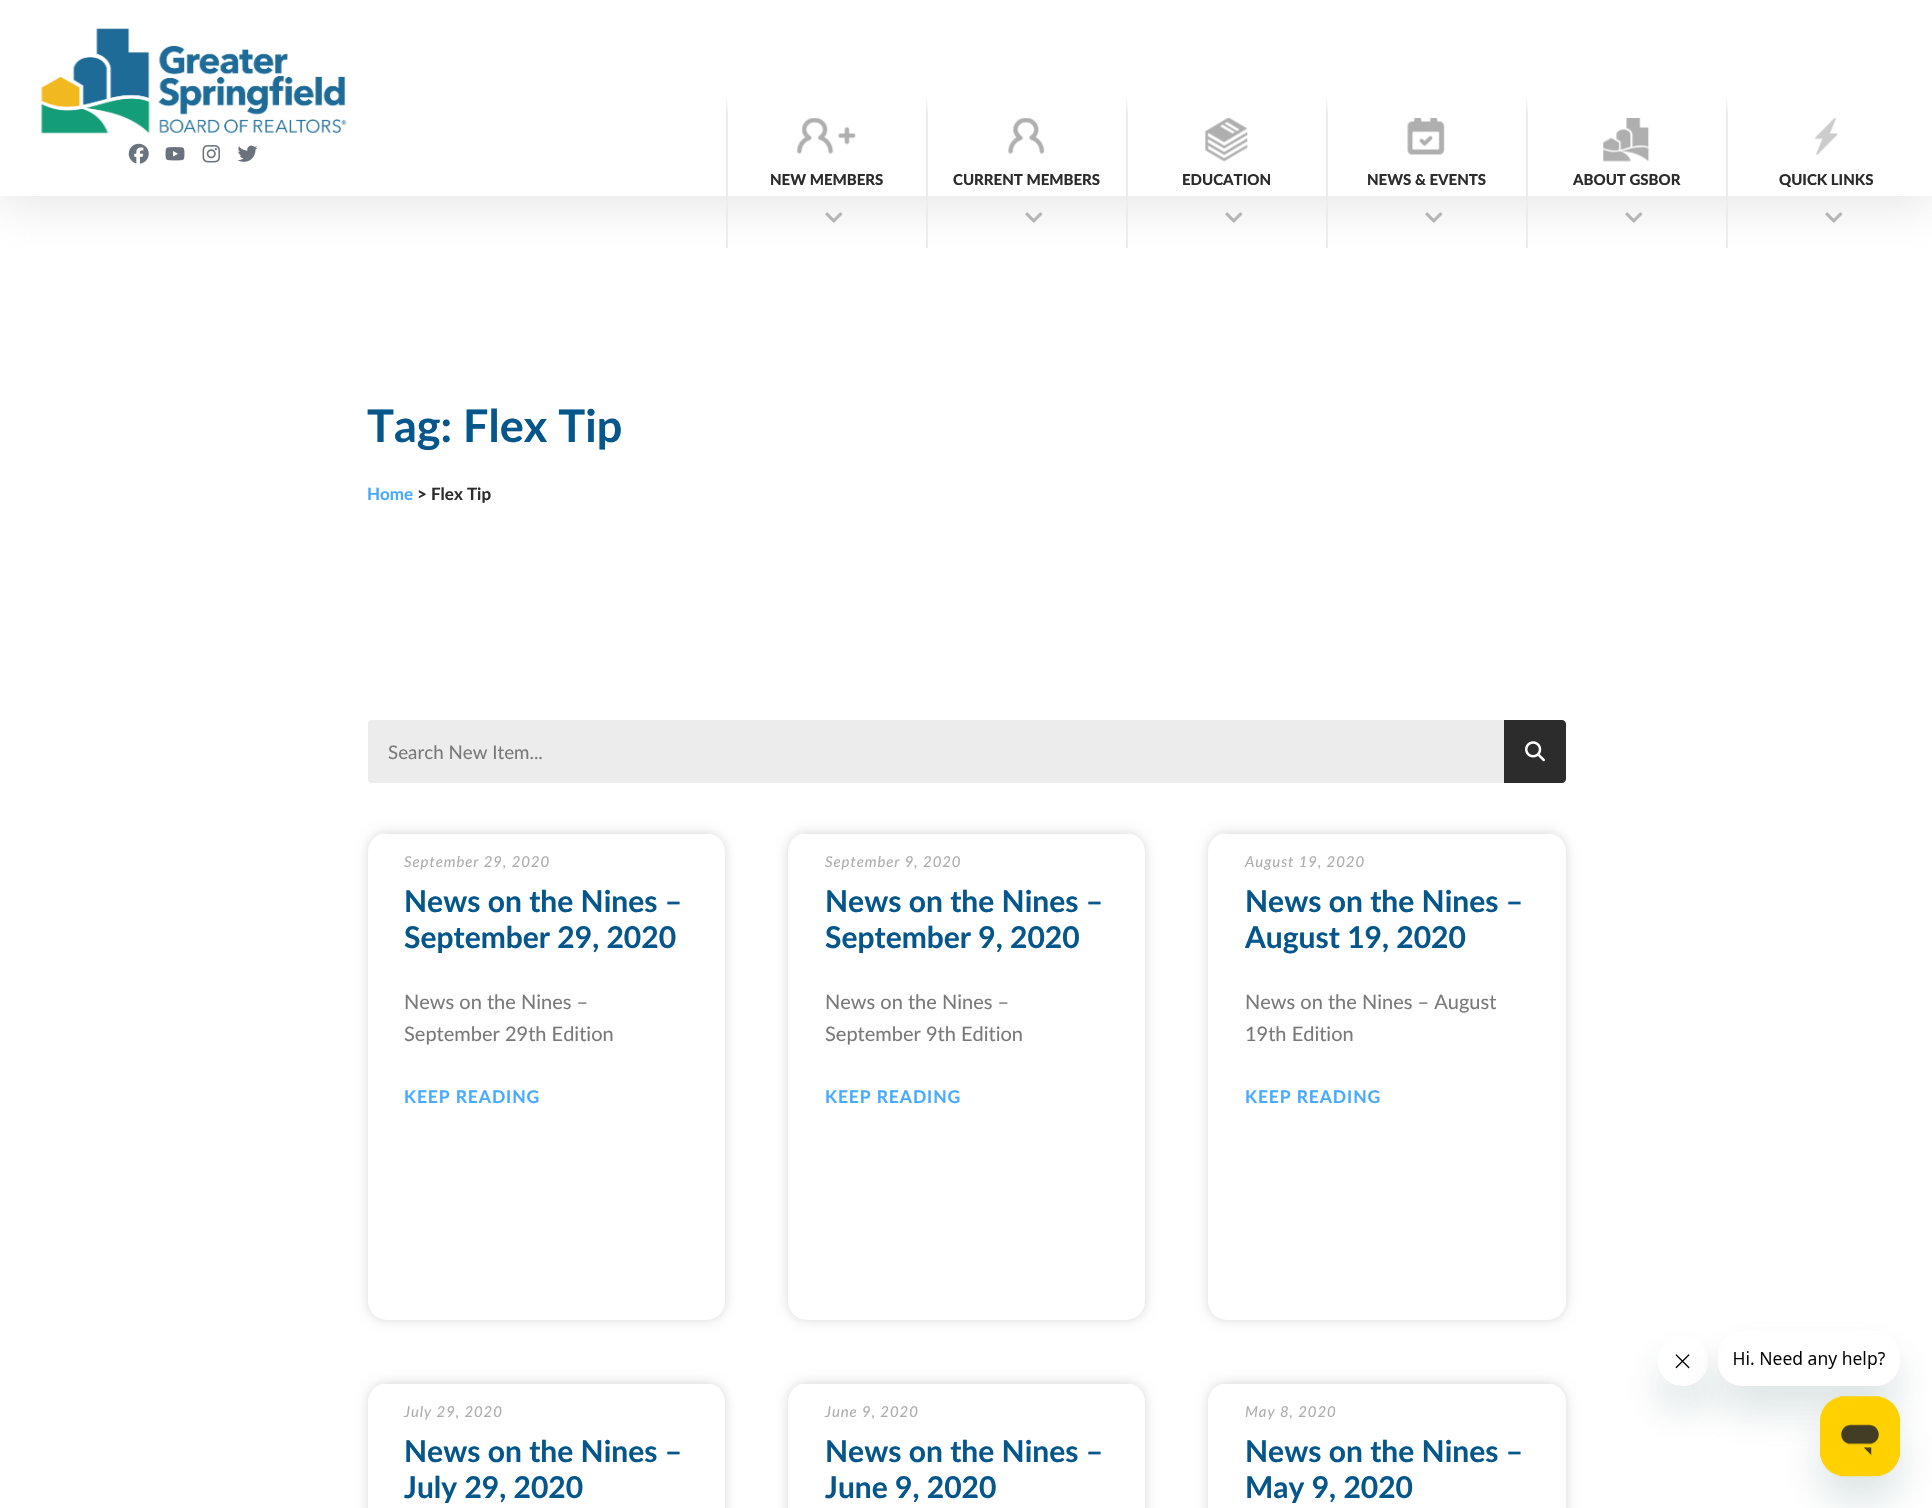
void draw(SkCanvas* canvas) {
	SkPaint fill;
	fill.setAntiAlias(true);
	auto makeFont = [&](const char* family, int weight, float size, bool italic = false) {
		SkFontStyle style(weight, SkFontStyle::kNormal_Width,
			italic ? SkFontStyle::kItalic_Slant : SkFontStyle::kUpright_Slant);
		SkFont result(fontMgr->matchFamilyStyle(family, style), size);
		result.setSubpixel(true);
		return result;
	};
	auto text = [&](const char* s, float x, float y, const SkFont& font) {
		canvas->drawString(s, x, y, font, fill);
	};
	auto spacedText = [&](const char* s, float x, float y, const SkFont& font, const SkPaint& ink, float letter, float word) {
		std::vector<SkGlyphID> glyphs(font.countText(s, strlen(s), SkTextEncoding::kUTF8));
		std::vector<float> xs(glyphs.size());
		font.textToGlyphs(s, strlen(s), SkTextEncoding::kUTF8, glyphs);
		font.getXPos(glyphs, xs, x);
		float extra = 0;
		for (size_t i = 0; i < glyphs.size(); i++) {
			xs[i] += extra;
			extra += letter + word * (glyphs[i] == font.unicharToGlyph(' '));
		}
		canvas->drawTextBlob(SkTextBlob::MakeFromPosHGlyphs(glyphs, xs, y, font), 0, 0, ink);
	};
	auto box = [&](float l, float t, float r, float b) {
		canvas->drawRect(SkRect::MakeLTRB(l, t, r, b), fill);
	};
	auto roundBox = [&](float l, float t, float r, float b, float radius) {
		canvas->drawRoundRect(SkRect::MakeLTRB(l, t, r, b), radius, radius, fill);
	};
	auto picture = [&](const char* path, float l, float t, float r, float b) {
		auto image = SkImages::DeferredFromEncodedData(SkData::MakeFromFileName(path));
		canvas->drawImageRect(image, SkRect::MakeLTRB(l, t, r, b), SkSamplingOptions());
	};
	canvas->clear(0xFFFFFFFF);
	fill.setColor(0x80D2D2D2);
	fill.setMaskFilter(SkMaskFilter::MakeBlur(kNormal_SkBlurStyle, 21));
	canvas->drawRect(SkRect::MakeLTRB(0, 13, 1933, 209), fill);
	fill.setMaskFilter(nullptr);
	fill.setColor(0xFFFFFFFF);
	box(0, 0, 1932, 196);
	picture("image0.png", 40, 28, 347, 134);
	picture("image1.png", 128, 143, 149, 164);
	picture("image2.png", 165, 147, 185, 161);
	picture("image3.png", 202, 145, 220, 163);
	picture("image4.png", 237, 145, 258, 162);
	fill.setColor(0xFFECECEC);
	canvas->drawPath(SkPathBuilder().moveTo(726, 248).lineTo(726, 98).lineTo(728, 112).lineTo(728, 248).close().detach(), fill);
	picture("image5.png", 797, 118, 856, 154);
	picture("image6.png", 825, 212, 843, 223);
	canvas->drawPath(SkPathBuilder().moveTo(926, 248).lineTo(926, 98).lineTo(928, 112).lineTo(928, 248).close().detach(), fill);
	picture("image7.png", 1008, 118, 1045, 154);
	picture("image6.png", 1025, 212, 1043, 223);
	canvas->drawPath(SkPathBuilder().moveTo(1126, 248).lineTo(1126, 98).lineTo(1128, 112).lineTo(1128, 248).close().detach(), fill);
	picture("image8.png", 1205, 118, 1248, 162);
	picture("image6.png", 1225, 212, 1243, 223);
	canvas->drawPath(SkPathBuilder().moveTo(1326, 248).lineTo(1326, 98).lineTo(1328, 112).lineTo(1328, 248).close().detach(), fill);
	picture("image9.png", 1407, 118, 1445, 155);
	picture("image6.png", 1425, 212, 1443, 223);
	canvas->drawPath(SkPathBuilder().moveTo(1526, 248).lineTo(1526, 98).lineTo(1528, 112).lineTo(1528, 248).close().detach(), fill);
	picture("image10.png", 1603, 118, 1650, 162);
	picture("image6.png", 1625, 212, 1643, 223);
	canvas->drawPath(SkPathBuilder().moveTo(1726, 248).lineTo(1726, 98).lineTo(1728, 112).lineTo(1728, 248).close().detach(), fill);
	picture("image11.png", 1815, 118, 1838, 155);
	picture("image6.png", 1825, 212, 1843, 223);
	roundBox(368, 720, 1566, 783, 4);
	fill.setColor(0xFF2C2C2C);
	canvas->drawPath(SkPathBuilder().moveTo(1504, 720).lineTo(1562, 720).cubicTo(1564, 720, 1566, 722, 1566, 724).lineTo(1566, 779).cubicTo(1566, 781, 1564, 783, 1562, 783).lineTo(1504, 783).close().detach(), fill);
	picture("image12.png", 1525, 741, 1545, 762);
	fill.setColor(0x26000000);
	fill.setMaskFilter(SkMaskFilter::MakeBlur(kNormal_SkBlurStyle, 6));
	canvas->drawRoundRect(SkRect::MakeLTRB(368, 833, 725, 1320), 19, 19, fill);
	fill.setMaskFilter(nullptr);
	fill.setColor(0xFFFFFFFF);
	roundBox(368, 833, 725, 1320, 19);
	canvas->save();
	canvas->clipPath(SkPathBuilder().moveTo(387, 833).lineTo(706, 833).cubicTo(716.5f, 833, 725, 841.5f, 725, 852).lineTo(725, 1301).cubicTo(725, 1311.5f, 716.5f, 1320, 706, 1320).lineTo(387, 1320).cubicTo(376.5f, 1320, 368, 1311.5f, 368, 1301).lineTo(368, 852).cubicTo(368, 841.5f, 376.5f, 833, 387, 833).close().detach(), true);
	fill.setColor(0xFFEAEAEA);
	box(381, 833, 712, 834);
	canvas->restore();
	fill.setColor(0x26000000);
	fill.setMaskFilter(SkMaskFilter::MakeBlur(kNormal_SkBlurStyle, 6));
	canvas->drawRoundRect(SkRect::MakeLTRB(788, 833, 1145, 1320), 19, 19, fill);
	fill.setMaskFilter(nullptr);
	fill.setColor(0xFFFFFFFF);
	roundBox(788, 833, 1145, 1320, 19);
	canvas->save();
	canvas->clipPath(SkPathBuilder().moveTo(807, 833).lineTo(1126, 833).cubicTo(1136.5f, 833, 1145, 841.5f, 1145, 852).lineTo(1145, 1301).cubicTo(1145, 1311.5f, 1136.5f, 1320, 1126, 1320).lineTo(807, 1320).cubicTo(796.5f, 1320, 788, 1311.5f, 788, 1301).lineTo(788, 852).cubicTo(788, 841.5f, 796.5f, 833, 807, 833).close().detach(), true);
	fill.setColor(0xFFEAEAEA);
	box(801, 833, 1132, 834);
	canvas->restore();
	fill.setColor(0x26000000);
	fill.setMaskFilter(SkMaskFilter::MakeBlur(kNormal_SkBlurStyle, 6));
	canvas->drawRoundRect(SkRect::MakeLTRB(1208, 833, 1566, 1320), 19, 19, fill);
	fill.setMaskFilter(nullptr);
	fill.setColor(0xFFFFFFFF);
	roundBox(1208, 833, 1566, 1320, 19);
	canvas->save();
	canvas->clipPath(SkPathBuilder().moveTo(1227, 833).lineTo(1547, 833).cubicTo(1557.5f, 833, 1566, 841.5f, 1566, 852).lineTo(1566, 1301).cubicTo(1566, 1311.5f, 1557.5f, 1320, 1547, 1320).lineTo(1227, 1320).cubicTo(1216.5f, 1320, 1208, 1311.5f, 1208, 1301).lineTo(1208, 852).cubicTo(1208, 841.5f, 1216.5f, 833, 1227, 833).close().detach(), true);
	fill.setColor(0xFFEAEAEA);
	box(1221, 833, 1553, 834);
	canvas->restore();
	fill.setColor(0x26000000);
	fill.setMaskFilter(SkMaskFilter::MakeBlur(kNormal_SkBlurStyle, 6));
	canvas->drawRoundRect(SkRect::MakeLTRB(368, 1383, 725, 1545), 19, 19, fill);
	fill.setMaskFilter(nullptr);
	fill.setColor(0xFFFFFFFF);
	roundBox(368, 1383, 725, 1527, 19);
	canvas->save();
	canvas->clipPath(SkPathBuilder().moveTo(387, 1383).lineTo(706, 1383).cubicTo(716.5f, 1383, 725, 1391.5f, 725, 1402).lineTo(725, 1851).cubicTo(725, 1861.5f, 716.5f, 1870, 706, 1870).lineTo(387, 1870).cubicTo(376.5f, 1870, 368, 1861.5f, 368, 1851).lineTo(368, 1402).cubicTo(368, 1391.5f, 376.5f, 1383, 387, 1383).close().detach(), true);
	fill.setColor(0xFFEAEAEA);
	box(381, 1383, 712, 1384);
	canvas->restore();
	fill.setColor(0x26000000);
	fill.setMaskFilter(SkMaskFilter::MakeBlur(kNormal_SkBlurStyle, 6));
	canvas->drawRoundRect(SkRect::MakeLTRB(788, 1383, 1145, 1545), 19, 19, fill);
	fill.setMaskFilter(nullptr);
	fill.setColor(0xFFFFFFFF);
	roundBox(788, 1383, 1145, 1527, 19);
	canvas->save();
	canvas->clipPath(SkPathBuilder().moveTo(807, 1383).lineTo(1126, 1383).cubicTo(1136.5f, 1383, 1145, 1391.5f, 1145, 1402).lineTo(1145, 1851).cubicTo(1145, 1861.5f, 1136.5f, 1870, 1126, 1870).lineTo(807, 1870).cubicTo(796.5f, 1870, 788, 1861.5f, 788, 1851).lineTo(788, 1402).cubicTo(788, 1391.5f, 796.5f, 1383, 807, 1383).close().detach(), true);
	fill.setColor(0xFFEAEAEA);
	box(801, 1383, 1132, 1384);
	canvas->restore();
	canvas->save();
	canvas->clipPath(SkPathBuilder(SkPathFillType::kEvenOdd).moveTo(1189, 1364).lineTo(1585, 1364).lineTo(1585, 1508).lineTo(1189, 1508).close().moveTo(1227, 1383).lineTo(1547, 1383).cubicTo(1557.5f, 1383, 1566, 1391.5f, 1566, 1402).lineTo(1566, 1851).cubicTo(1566, 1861.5f, 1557.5f, 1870, 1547, 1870).lineTo(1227, 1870).cubicTo(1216.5f, 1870, 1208, 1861.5f, 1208, 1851).lineTo(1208, 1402).cubicTo(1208, 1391.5f, 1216.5f, 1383, 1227, 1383).close().detach(), true);
	fill.setColor(0x26000000);
	fill.setMaskFilter(SkMaskFilter::MakeBlur(kNormal_SkBlurStyle, 6));
	canvas->drawRoundRect(SkRect::MakeLTRB(1208, 1383, 1566, 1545), 19, 19, fill);
	fill.setMaskFilter(nullptr);
	canvas->restore();
	canvas->save();
	canvas->clipPath(SkPathBuilder().moveTo(1227, 1383).lineTo(1547, 1383).cubicTo(1557.5f, 1383, 1566, 1391.5f, 1566, 1402).lineTo(1566, 1851).cubicTo(1566, 1861.5f, 1557.5f, 1870, 1547, 1870).lineTo(1227, 1870).cubicTo(1216.5f, 1870, 1208, 1861.5f, 1208, 1851).lineTo(1208, 1402).cubicTo(1208, 1391.5f, 1216.5f, 1383, 1227, 1383).close().detach(), true);
	fill.setColor(0xFFEAEAEA);
	box(1221, 1383, 1553, 1384);
	canvas->restore();
	canvas->save();
	canvas->clipPath(SkPathBuilder(SkPathFillType::kEvenOdd).moveTo(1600, 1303).lineTo(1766, 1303).lineTo(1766, 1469).lineTo(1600, 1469).close().moveTo(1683, 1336).cubicTo(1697, 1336, 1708, 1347, 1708, 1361).cubicTo(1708, 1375, 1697, 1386, 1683, 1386).cubicTo(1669, 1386, 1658, 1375, 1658, 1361).cubicTo(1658, 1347, 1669, 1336, 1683, 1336).close().detach(), true);
	fill.setColor(0x2617494D);
	fill.setMaskFilter(SkMaskFilter::MakeBlur(kNormal_SkBlurStyle, 19));
	canvas->drawRoundRect(SkRect::MakeLTRB(1658, 1361, 1708, 1411), 25, 25, fill);
	fill.setMaskFilter(nullptr);
	canvas->restore();
	picture("image14.png", 1675, 1354, 1690, 1369);
	canvas->save();
	canvas->clipPath(SkPathBuilder(SkPathFillType::kEvenOdd).moveTo(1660, 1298).lineTo(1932, 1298).lineTo(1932, 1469).lineTo(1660, 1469).close().moveTo(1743, 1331).lineTo(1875, 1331).cubicTo(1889, 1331, 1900, 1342, 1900, 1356).lineTo(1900, 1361).cubicTo(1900, 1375, 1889, 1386, 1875, 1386).lineTo(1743, 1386).cubicTo(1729, 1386, 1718, 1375, 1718, 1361).lineTo(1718, 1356).cubicTo(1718, 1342, 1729, 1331, 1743, 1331).close().detach(), true);
	fill.setMaskFilter(SkMaskFilter::MakeBlur(kNormal_SkBlurStyle, 19));
	canvas->drawRoundRect(SkRect::MakeLTRB(1718, 1356, 1900, 1411), 25, 25, fill);
	fill.setMaskFilter(nullptr);
	canvas->restore();
	picture("image13.png", 1718, 1351, 1885, 1382);
	fill.setMaskFilter(SkMaskFilter::MakeBlur(kNormal_SkBlurStyle, 19));
	canvas->drawRoundRect(SkRect::MakeLTRB(1820, 1421, 1900, 1501), 25, 25, fill);
	fill.setMaskFilter(nullptr);
	picture("image15.png", 1820, 1396, 1900, 1477);
	auto font1 = makeFont("Lato", 900, 15);
	fill.setColor(0xFF2C2C2C);
	text("NEW MEMBERS", 770, 185, font1);
	text("CURRENT MEMBERS", 953, 185, font1);
	text("EDUCATION", 1182, 185, font1);
	text("NEWS & EVENTS", 1367, 185, font1);
	text("ABOUT GSBOR", 1573, 185, font1);
	text("QUICK LINKS", 1779, 185, font1);
	auto font2 = makeFont("Lato", 700, 45);
	fill.setColor(0xFF05568B);
	text("Tag: Flex Tip", 367, 442, font2);
	auto font3 = makeFont("Lato", 700, 17);
	fill.setColor(0xFF48ABFD);
	text("Home", 367, 500, font3);
	fill.setColor(0xFF2C2C2C);
	text("> Flex Tip", 417, 500, font3);
	auto font4 = makeFont("Lato", 400, 18.75f);
	fill.setColor(0xFF797979);
	text("Search New Item...", 388, 759, font4);
	auto font5 = makeFont("Lato", 400, 15, true);
	fill.setColor(0xFFADADAD);
	spacedText("September 29, 2020", 404, 867, font5, fill, 0.9f, 0);
	auto font6 = makeFont("Lato", 700, 30);
	fill.setColor(0xFF05568B);
	text("News on the Nines –", 404, 912, font6);
	text("September 29, 2020", 404, 948, font6);
	auto font7 = makeFont("Lato", 400, 20);
	fill.setColor(0xFF797979);
	text("News on the Nines –", 404, 1009, font7);
	text("September 29th Edition", 404, 1041, font7);
	auto font8 = makeFont("Lato", 700, 17.5f);
	fill.setColor(0xFF48ABFD);
	spacedText("KEEP READING", 404, 1103, font8, fill, 0.9f, 0);
	fill.setColor(0xFFADADAD);
	spacedText("September 9, 2020", 825, 867, font5, fill, 0.9f, 0);
	fill.setColor(0xFF05568B);
	text("News on the Nines –", 825, 912, font6);
	text("September 9, 2020", 825, 948, font6);
	fill.setColor(0xFF797979);
	text("News on the Nines –", 825, 1009, font7);
	text("September 9th Edition", 825, 1041, font7);
	fill.setColor(0xFF48ABFD);
	spacedText("KEEP READING", 825, 1103, font8, fill, 0.9f, 0);
	fill.setColor(0xFFADADAD);
	spacedText("August 19, 2020", 1245, 867, font5, fill, 0.9f, 0);
	fill.setColor(0xFF05568B);
	text("News on the Nines –", 1245, 912, font6);
	text("August 19, 2020", 1245, 948, font6);
	fill.setColor(0xFF797979);
	text("News on the Nines – August", 1245, 1009, font7);
	text("19th Edition", 1245, 1041, font7);
	fill.setColor(0xFF48ABFD);
	spacedText("KEEP READING", 1245, 1103, font8, fill, 0.9f, 0);
	fill.setColor(0xFFADADAD);
	spacedText("July 29, 2020", 404, 1417, font5, fill, 0.9f, 0);
	fill.setColor(0xFF05568B);
	text("News on the Nines –", 404, 1462, font6);
	text("July 29, 2020", 404, 1498, font6);
	fill.setColor(0xFFADADAD);
	spacedText("June 9, 2020", 825, 1417, font5, fill, 0.9f, 0);
	fill.setColor(0xFF05568B);
	text("News on the Nines –", 825, 1462, font6);
	text("June 9, 2020", 825, 1498, font6);
	fill.setColor(0xFFADADAD);
	spacedText("May 8, 2020", 1245, 1417, font5, fill, 0.9f, 0);
	fill.setColor(0xFF05568B);
	text("News on the Nines –", 1245, 1462, font6);
	text("May 9, 2020", 1245, 1498, font6);
}
